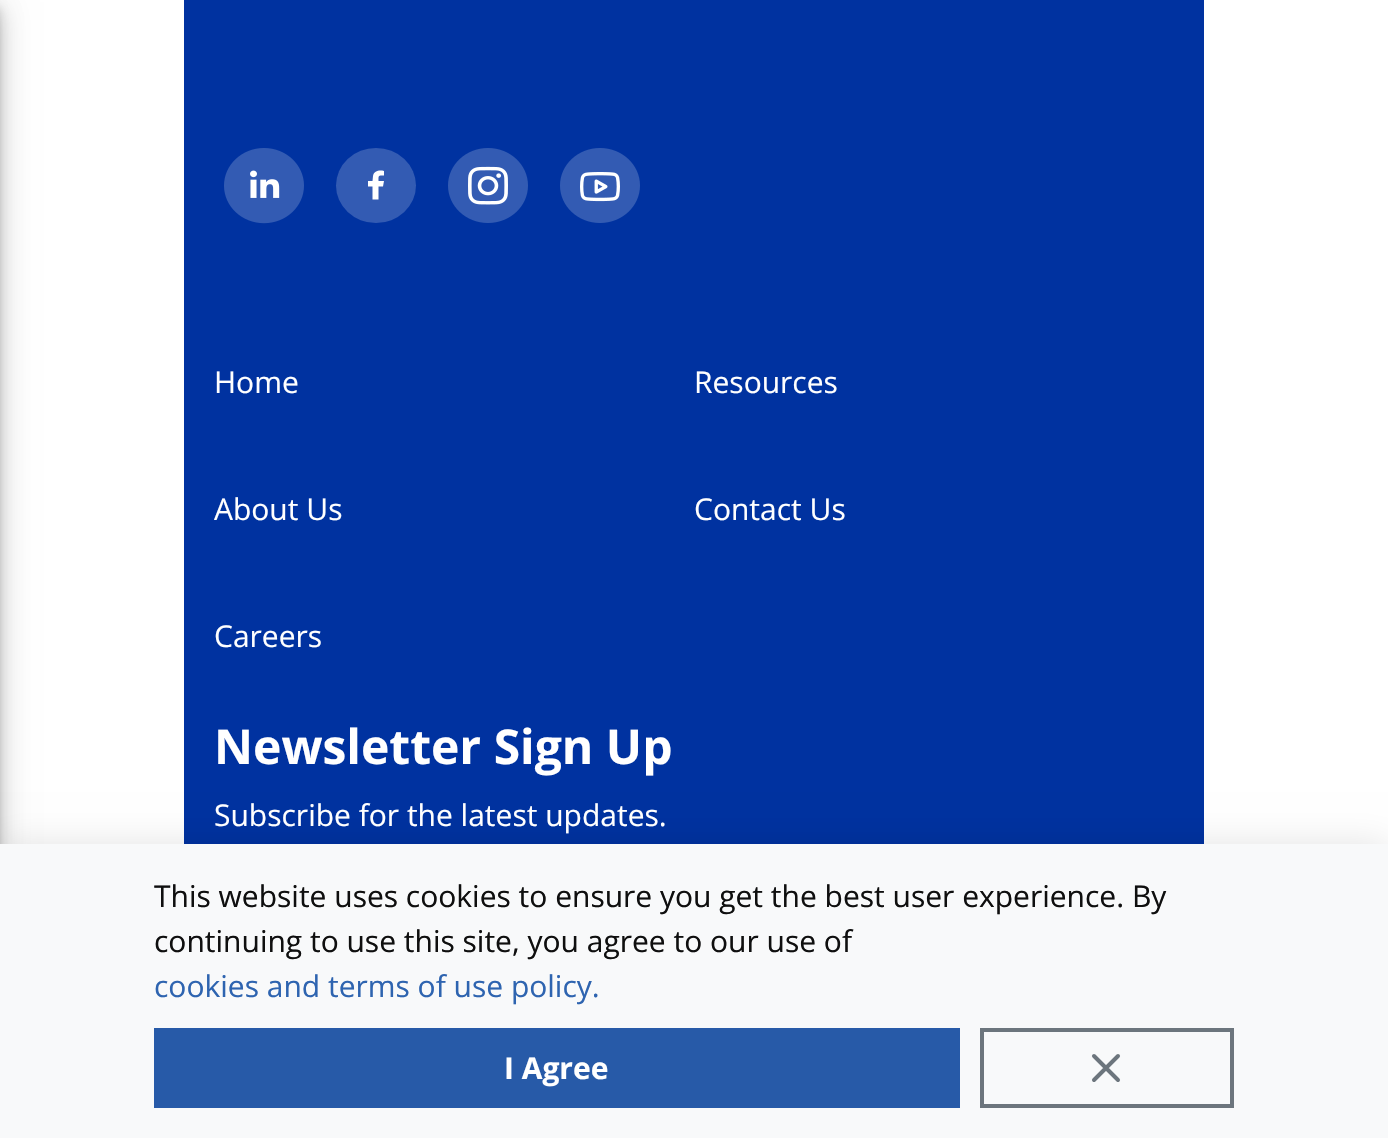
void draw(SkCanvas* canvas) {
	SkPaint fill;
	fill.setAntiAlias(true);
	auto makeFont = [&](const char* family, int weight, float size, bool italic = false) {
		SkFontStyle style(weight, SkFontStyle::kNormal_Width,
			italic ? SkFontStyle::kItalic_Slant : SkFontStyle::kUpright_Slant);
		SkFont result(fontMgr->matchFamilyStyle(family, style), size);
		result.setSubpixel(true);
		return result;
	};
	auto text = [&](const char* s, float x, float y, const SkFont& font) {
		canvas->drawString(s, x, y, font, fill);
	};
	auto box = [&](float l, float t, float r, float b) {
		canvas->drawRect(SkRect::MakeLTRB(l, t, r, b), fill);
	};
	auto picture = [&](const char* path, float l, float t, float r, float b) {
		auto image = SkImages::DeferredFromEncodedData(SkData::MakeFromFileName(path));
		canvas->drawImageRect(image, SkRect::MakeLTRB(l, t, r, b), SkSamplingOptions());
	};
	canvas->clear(0xFFFFFFFF);
	fill.setColor(0x1F000000);
	fill.setMaskFilter(SkMaskFilter::MakeBlur(kNormal_SkBlurStyle, 18));
	canvas->drawRect(SkRect::MakeLTRB(-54, 2, 0, 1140), fill);
	fill.setMaskFilter(nullptr);
	fill.setColor(0x24000000);
	fill.setMaskFilter(SkMaskFilter::MakeBlur(kNormal_SkBlurStyle, 10));
	canvas->drawRect(SkRect::MakeLTRB(-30, 12, 0, 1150), fill);
	fill.setMaskFilter(nullptr);
	fill.setColor(0x33000000);
	fill.setMaskFilter(SkMaskFilter::MakeBlur(kNormal_SkBlurStyle, 5));
	canvas->drawRect(SkRect::MakeLTRB(-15, 8, -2, 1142), fill);
	fill.setMaskFilter(nullptr);
	fill.setColor(0xFF0032A0);
	box(184, 0, 1204, 844);
	picture("image0.png", 224, 148, 304, 224);
	fill.setColor(0xFF335BB3);
	canvas->drawOval(SkRect::MakeLTRB(336, 148, 416, 223), fill);
	fill.setColor(0xFFFFFFFF);
	canvas->drawPath(SkPathBuilder(SkPathFillType::kEvenOdd).moveTo(372.5f, 199.5f).lineTo(372.5f, 186.5f).lineTo(368, 186.5f).lineTo(368, 181).lineTo(372.5f, 181).lineTo(373, 176).cubicTo(374, 170.5f, 379.5f, 170, 384, 171).lineTo(384, 175.5f).cubicTo(378, 175.5f, 378.5f, 175.5f, 378.5f, 181).lineTo(384, 181).lineTo(383, 186.5f).lineTo(378.5f, 186.5f).lineTo(378.5f, 199.5f).close().detach(), fill);
	picture("image1.png", 448, 148, 528, 223);
	picture("image2.png", 560, 148, 640, 223);
	fill.setColor(0x1F000000);
	fill.setMaskFilter(SkMaskFilter::MakeBlur(kNormal_SkBlurStyle, 18));
	canvas->drawRect(SkRect::MakeLTRB(0, 846, 1388, 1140), fill);
	fill.setMaskFilter(nullptr);
	fill.setColor(0xFFF8F9FA);
	box(0, 844, 1388, 1138);
	fill.setColor(0xFF275AA8);
	box(154, 1028, 960, 1108);
	fill.setStyle(SkPaint::kStroke_Style);
	fill.setStrokeWidth(4);
	fill.setColor(0xFF6C757D);
	canvas->drawRect(SkRect::MakeLTRB(982, 1030, 1232, 1106), fill);
	fill.setStrokeCap(SkPaint::kRound_Cap);
	fill.setStrokeJoin(SkPaint::kRound_Join);
	canvas->drawPath(SkPathBuilder().moveTo(1118, 1056).lineTo(1094, 1080).moveTo(1094, 1056).lineTo(1118, 1080).detach(), fill);
	auto font1 = makeFont("Open Sans", 400, 30);
	fill.setStyle(SkPaint::kFill_Style);
	fill.setColor(0xFFFFFFFF);
	text("Home", 214, 393, font1);
	text("Resources", 694, 393, font1);
	text("About Us", 214, 520, font1);
	text("Contact Us", 694, 520, font1);
	text("Careers", 214, 647, font1);
	auto font2 = makeFont("Open Sans", 700, 48);
	text("Newsletter Sign Up", 214, 764, font2);
	text("Subscribe for the latest updates.", 214, 826, font1);
	fill.setColor(0xFF0F0F0F);
	text("This website uses cookies to ensure you get the best user experience. By", 154, 907, font1);
	text("continuing to use this site, you agree to our use of", 154, 952, font1);
	fill.setColor(0xFF2E64B0);
	text("cookies and terms of use policy.", 154, 997, font1);
	auto font3 = makeFont("Open Sans", 700, 30);
	fill.setColor(0xFFFFFFFF);
	text("I Agree", 504, 1079, font3);
}
